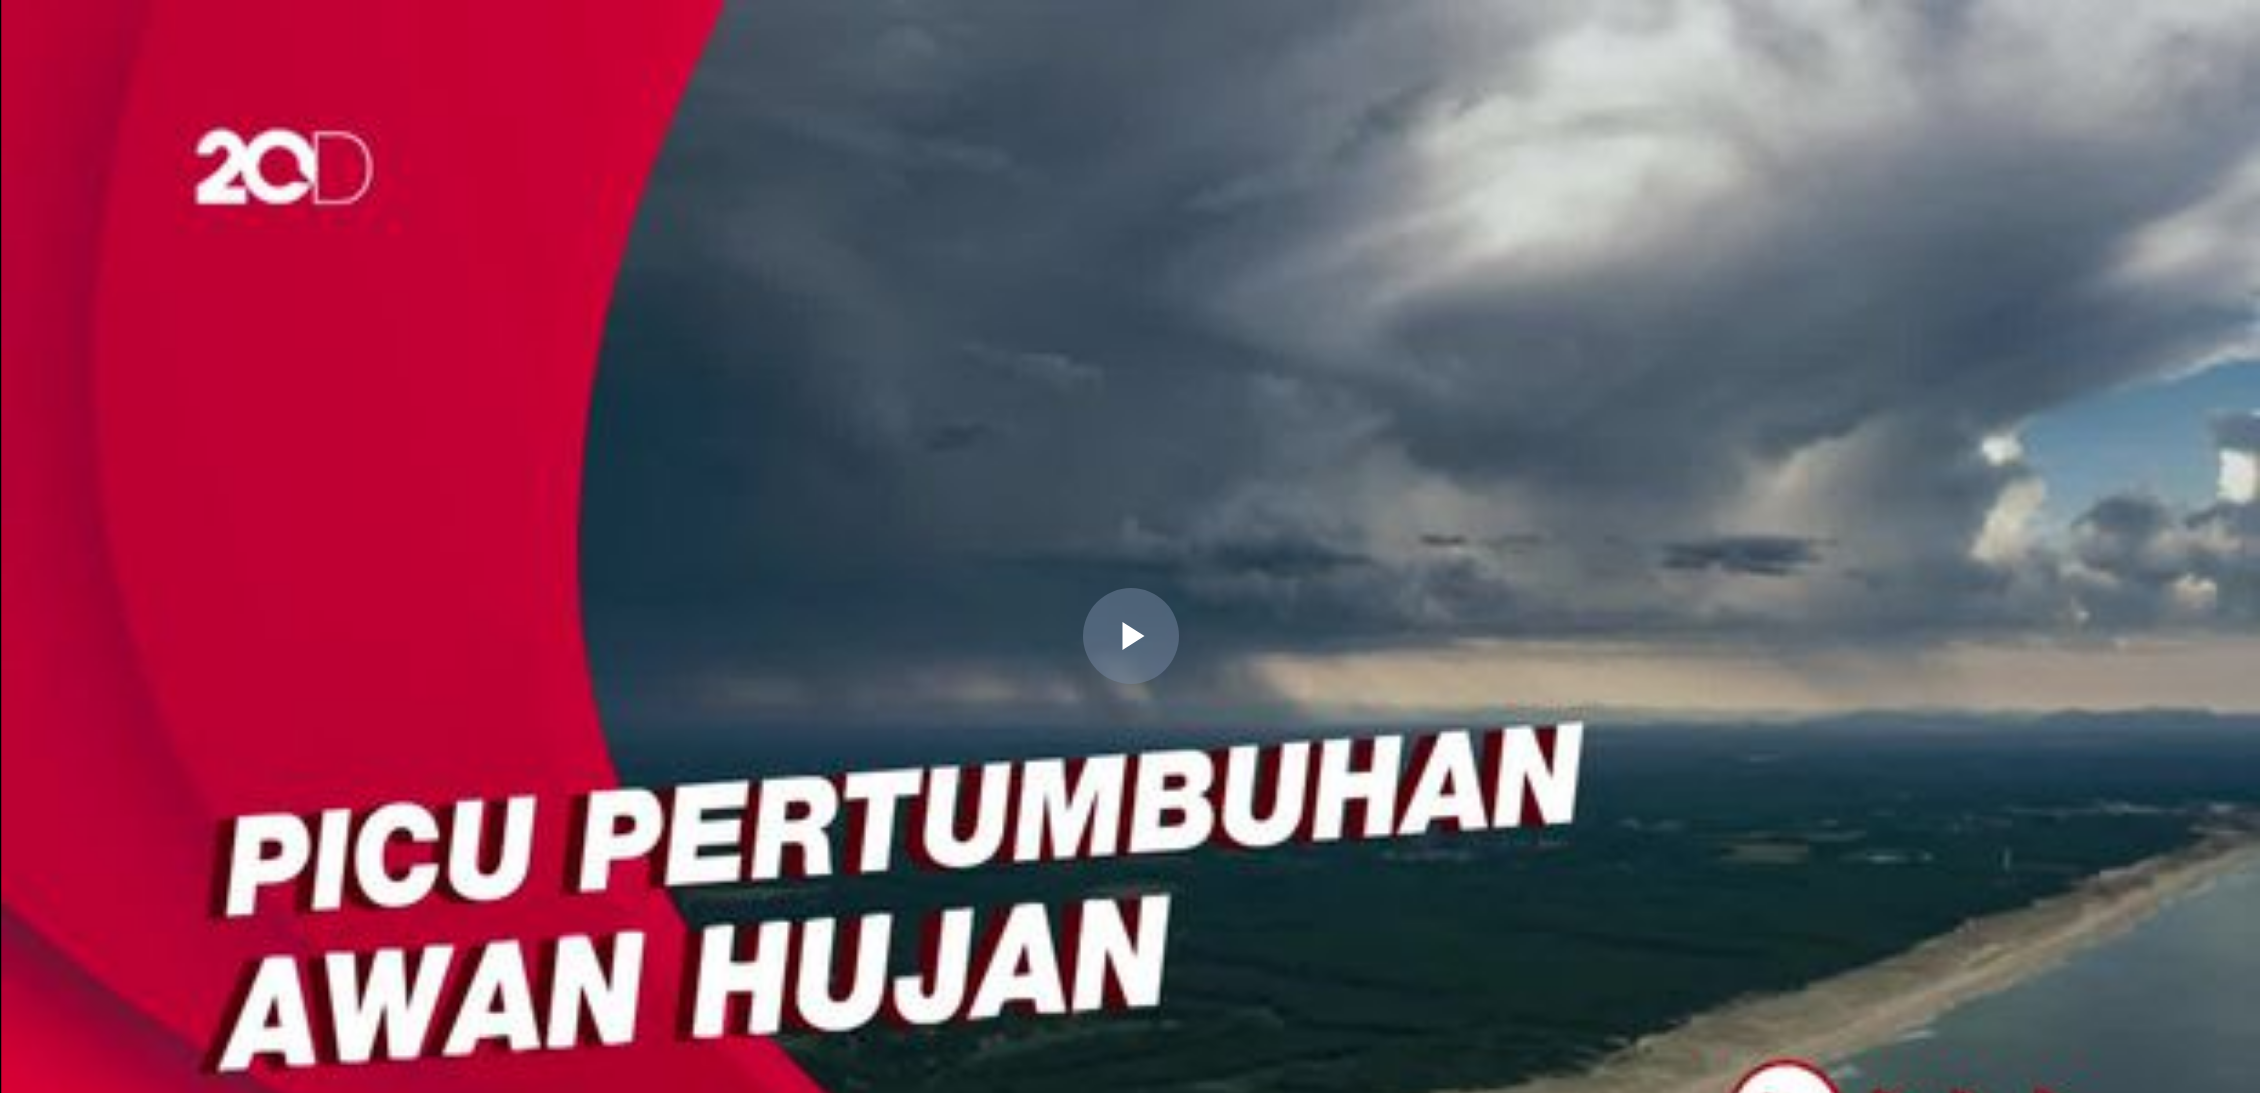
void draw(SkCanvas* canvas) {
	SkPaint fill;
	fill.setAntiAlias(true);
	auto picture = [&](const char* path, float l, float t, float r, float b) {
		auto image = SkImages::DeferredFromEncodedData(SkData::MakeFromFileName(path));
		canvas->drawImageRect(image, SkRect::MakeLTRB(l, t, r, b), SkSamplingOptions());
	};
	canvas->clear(0xFF000000);
	picture("image0.png", 1, 0, 2260, 1093);
	fill.setColor(0x8073859F);
	canvas->drawCircle(1131, 636, 48, fill);
	fill.setColor(0xFFFFFFFF);
	canvas->drawPath(SkPathBuilder().moveTo(1122.5f, 622).lineTo(1122.5f, 650).lineTo(1144.5f, 636).close().detach(), fill);
}
